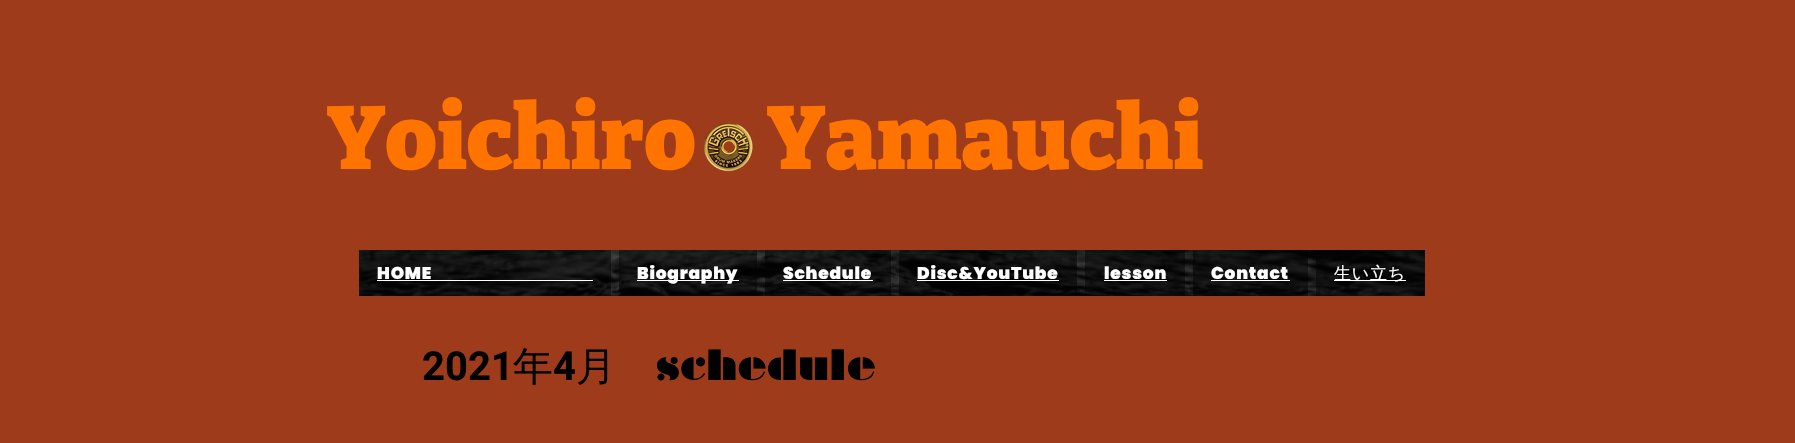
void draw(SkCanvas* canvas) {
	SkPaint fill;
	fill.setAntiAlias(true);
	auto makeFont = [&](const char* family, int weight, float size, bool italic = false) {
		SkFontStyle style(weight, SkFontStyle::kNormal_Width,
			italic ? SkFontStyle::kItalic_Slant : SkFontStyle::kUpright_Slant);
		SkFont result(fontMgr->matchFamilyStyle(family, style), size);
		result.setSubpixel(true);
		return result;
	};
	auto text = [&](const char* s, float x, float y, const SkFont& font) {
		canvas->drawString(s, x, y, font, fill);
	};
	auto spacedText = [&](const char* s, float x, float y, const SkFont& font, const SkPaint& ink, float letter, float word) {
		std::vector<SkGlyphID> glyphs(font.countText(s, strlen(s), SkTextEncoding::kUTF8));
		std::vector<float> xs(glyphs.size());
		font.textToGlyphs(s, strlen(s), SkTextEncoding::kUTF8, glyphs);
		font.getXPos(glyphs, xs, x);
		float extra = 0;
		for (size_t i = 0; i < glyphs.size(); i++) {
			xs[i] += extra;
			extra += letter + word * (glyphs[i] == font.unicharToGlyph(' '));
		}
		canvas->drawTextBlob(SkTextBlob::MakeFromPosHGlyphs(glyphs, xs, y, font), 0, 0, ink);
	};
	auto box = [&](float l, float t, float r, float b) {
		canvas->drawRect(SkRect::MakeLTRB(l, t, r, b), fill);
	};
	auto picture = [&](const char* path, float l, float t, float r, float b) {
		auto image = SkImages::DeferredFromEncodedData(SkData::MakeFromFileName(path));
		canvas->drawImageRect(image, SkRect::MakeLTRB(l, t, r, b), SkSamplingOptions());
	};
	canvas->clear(0xFF9E3B1B);
	picture("image1.png", 359, 250, 1425, 296);
	fill.setColor(0x78000000);
	box(359, 250, 611, 296);
	fill.setColor(0xFFFFFFFF);
	box(377, 280, 593, 281);
	fill.setColor(0x78000000);
	box(619, 250, 757, 296);
	fill.setColor(0xFFFFFFFF);
	box(637, 280, 739, 281);
	fill.setColor(0x78000000);
	box(765, 250, 891, 296);
	fill.setColor(0xFFFFFFFF);
	box(783, 280, 873, 281);
	fill.setColor(0x78000000);
	box(899, 250, 1077, 296);
	fill.setColor(0xFFFFFFFF);
	box(917, 280, 1059, 281);
	fill.setColor(0x78000000);
	box(1085, 250, 1185, 296);
	fill.setColor(0xFFFFFFFF);
	box(1104, 280, 1167, 281);
	fill.setColor(0x78000000);
	box(1193, 250, 1308, 296);
	fill.setColor(0xFFFFFFFF);
	box(1211, 280, 1290, 281);
	fill.setColor(0x78000000);
	box(1316, 250, 1425, 296);
	fill.setColor(0xFFFFFFFF);
	box(1334, 280, 1406, 281);
	auto font1 = makeFont("Bitter", 900, 89);
	fill.setColor(0xFFFF7300);
	text("Yoichiro     Yamauchi", 327, 169, font1);
	picture("image0.png", 704, 122, 754, 172);
	auto font2 = makeFont("Poppins", 900, 17);
	fill.setColor(0xFFFFFFFF);
	spacedText("HOME", 377, 279, font2, fill, 0.8f, 0);
	spacedText("Biography", 637, 279, font2, fill, 0.8f, 0);
	spacedText("Schedule", 783, 279, font2, fill, 0.8f, 0);
	spacedText("Disc&YouTube", 917, 279, font2, fill, 0.8f, 0);
	spacedText("lesson", 1104, 279, font2, fill, 0.8f, 0);
	spacedText("Contact", 1211, 279, font2, fill, 0.8f, 0);
	auto font3 = makeFont("WenQuanYi Zen Hei", 500, 17);
	spacedText("生い立ち", 1334, 279, font3, fill, 0.8f, 0);
	auto font4 = makeFont("Roboto", 700, 40);
	fill.setColor(0xFF000000);
	text("2021", 422, 380, font4);
	auto font5 = makeFont("WenQuanYi Zen Hei", 500, 40);
	text("年", 513, 380, font5);
	text("4", 553, 380, font4);
	text("月", 576, 380, font5);
	auto font6 = makeFont("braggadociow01", 400, 40);
	text("schedule", 656, 380, font6);
}
